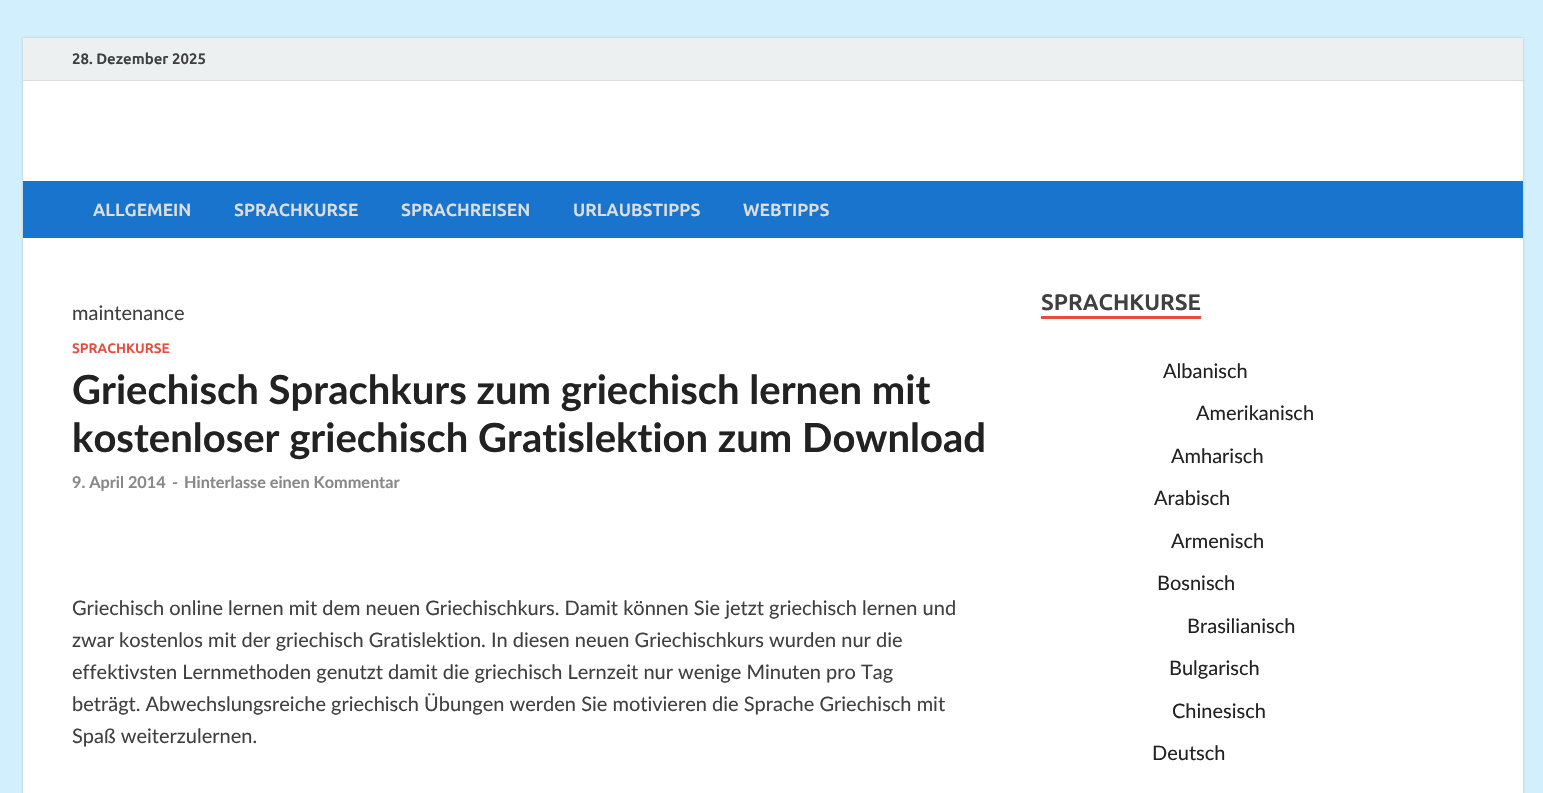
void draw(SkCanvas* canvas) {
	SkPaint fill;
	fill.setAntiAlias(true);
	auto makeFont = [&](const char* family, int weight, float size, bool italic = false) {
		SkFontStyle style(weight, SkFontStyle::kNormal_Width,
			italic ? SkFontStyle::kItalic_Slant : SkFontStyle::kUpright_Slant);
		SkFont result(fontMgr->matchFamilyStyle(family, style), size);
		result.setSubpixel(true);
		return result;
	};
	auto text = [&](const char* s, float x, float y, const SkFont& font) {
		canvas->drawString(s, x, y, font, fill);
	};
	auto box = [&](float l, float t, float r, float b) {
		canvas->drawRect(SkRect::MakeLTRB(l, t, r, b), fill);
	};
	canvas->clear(0xFFD1EFFC);
	fill.setColor(0xFFBBBBBB);
	fill.setMaskFilter(SkMaskFilter::MakeBlur(kNormal_SkBlurStyle, 1));
	canvas->drawRect(SkRect::MakeLTRB(23, 38, 1523, 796), fill);
	fill.setMaskFilter(nullptr);
	fill.setColor(0xFFFFFFFF);
	box(23, 81, 1523, 793);
	fill.setColor(0xFFECF0F1);
	box(23, 38, 1523, 80);
	fill.setColor(0xFFDDDDDD);
	box(23, 80, 1523, 81);
	fill.setColor(0xFF1874CD);
	box(23, 181, 1523, 238);
	fill.setColor(0xFFE74C3C);
	box(1041, 316, 1201, 319);
	auto font1 = makeFont("Ubuntu", 700, 15);
	fill.setColor(0xFF404040);
	text("28. Dezember 2025", 72, 64, font1);
	auto font2 = makeFont("Ubuntu", 700, 17.5f);
	fill.setColor(0xFFDDDDDD);
	text("ALLGEMEIN", 93, 216, font2);
	text("SPRACHKURSE", 234, 216, font2);
	text("SPRACHREISEN", 401, 216, font2);
	text("URLAUBSTIPPS", 573, 216, font2);
	text("WEBTIPPS", 743, 216, font2);
	auto font3 = makeFont("Lato", 400, 20);
	fill.setColor(0xFF404040);
	text("maintenance", 72, 320, font3);
	auto font4 = makeFont("Ubuntu", 700, 13.75f);
	fill.setColor(0xFFE74C3C);
	text("SPRACHKURSE", 72, 353, font4);
	auto font5 = makeFont("Lato", 700, 40);
	fill.setColor(0xFF222222);
	text("Griechisch Sprachkurs zum griechisch lernen mit", 72, 404, font5);
	text("kostenloser griechisch Gratislektion zum Download", 72, 452, font5);
	auto font6 = makeFont("Lato", 700, 16.25f);
	fill.setColor(0xFF888888);
	text("9. April 2014", 72, 488, font6);
	text("-", 172, 488, font6);
	text("Hinterlasse einen Kommentar", 184, 488, font6);
	fill.setColor(0xFF404040);
	text("Griechisch online lernen mit dem neuen Griechischkurs. Damit können Sie jetzt griechisch lernen und", 72, 615, font3);
	text("zwar kostenlos mit der griechisch Gratislektion. In diesen neuen Griechischkurs wurden nur die", 72, 647, font3);
	text("effektivsten Lernmethoden genutzt damit die griechisch Lernzeit nur wenige Minuten pro Tag", 72, 679, font3);
	text("beträgt. Abwechslungsreiche griechisch Übungen werden Sie motivieren die Sprache Griechisch mit", 72, 711, font3);
	text("Spaß weiterzulernen.", 72, 743, font3);
	auto font7 = makeFont("Ubuntu", 700, 22.5f);
	text("SPRACHKURSE", 1041, 310, font7);
	fill.setColor(0xFF222222);
	text("Albanisch", 1163, 378, font3);
	text("Amerikanisch", 1196, 420, font3);
	text("Amharisch", 1171, 463, font3);
	text("Arabisch", 1154, 505, font3);
	text("Armenisch", 1171, 548, font3);
	text("Bosnisch", 1157, 590, font3);
	text("Brasilianisch", 1187, 633, font3);
	text("Bulgarisch", 1169, 675, font3);
	text("Chinesisch", 1172, 718, font3);
	text("Deutsch", 1152, 760, font3);
}
